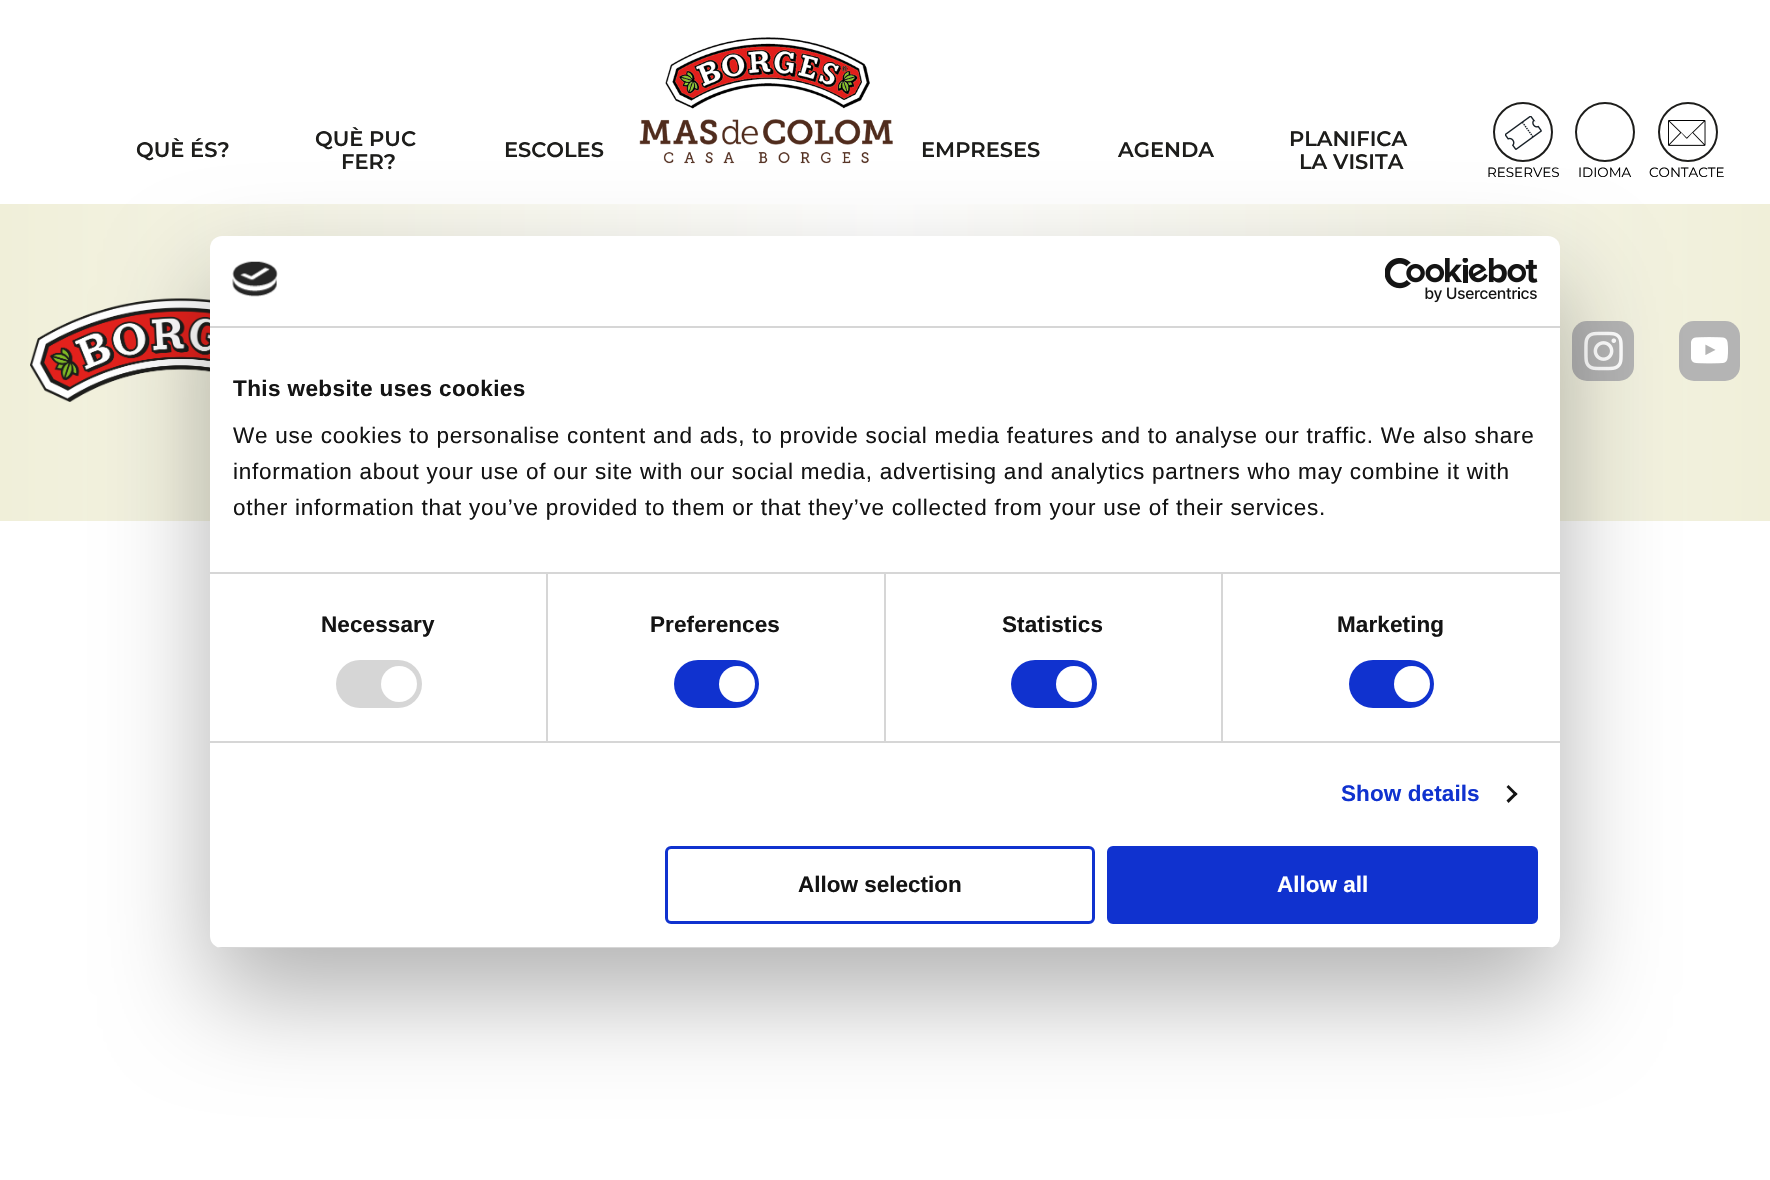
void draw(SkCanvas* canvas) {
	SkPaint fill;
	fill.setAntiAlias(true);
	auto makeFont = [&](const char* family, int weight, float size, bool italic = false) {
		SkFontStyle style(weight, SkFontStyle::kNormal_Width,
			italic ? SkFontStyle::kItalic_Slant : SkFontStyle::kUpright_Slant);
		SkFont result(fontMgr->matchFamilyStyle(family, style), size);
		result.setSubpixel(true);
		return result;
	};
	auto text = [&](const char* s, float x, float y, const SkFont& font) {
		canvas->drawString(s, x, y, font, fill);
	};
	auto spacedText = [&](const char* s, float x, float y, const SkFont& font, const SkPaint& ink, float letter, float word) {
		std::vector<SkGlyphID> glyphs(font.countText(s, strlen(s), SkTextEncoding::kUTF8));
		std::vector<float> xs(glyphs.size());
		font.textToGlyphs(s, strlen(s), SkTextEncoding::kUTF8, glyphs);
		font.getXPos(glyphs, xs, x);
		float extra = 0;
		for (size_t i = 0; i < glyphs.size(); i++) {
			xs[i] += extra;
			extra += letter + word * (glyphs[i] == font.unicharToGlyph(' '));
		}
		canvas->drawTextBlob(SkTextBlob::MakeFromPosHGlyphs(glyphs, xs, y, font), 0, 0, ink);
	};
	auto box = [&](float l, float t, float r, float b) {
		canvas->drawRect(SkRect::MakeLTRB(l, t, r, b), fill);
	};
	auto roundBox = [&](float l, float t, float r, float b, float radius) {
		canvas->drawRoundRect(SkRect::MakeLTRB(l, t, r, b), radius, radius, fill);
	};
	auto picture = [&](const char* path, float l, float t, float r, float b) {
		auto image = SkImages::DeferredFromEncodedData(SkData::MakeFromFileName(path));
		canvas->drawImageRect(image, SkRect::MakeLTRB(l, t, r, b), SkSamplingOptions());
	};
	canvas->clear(0xFFFFFFFF);
	picture("image0.png", 639, 37, 893, 164);
	fill.setStyle(SkPaint::kStroke_Style);
	fill.setStrokeWidth(2);
	fill.setColor(0xFF1D1D1B);
	canvas->drawCircle(1523, 132, 29, fill);
	picture("image1.png", 1505, 116, 1542, 150);
	canvas->drawCircle(1605, 132, 29, fill);
	canvas->drawCircle(1688, 132, 29, fill);
	picture("image2.png", 1668, 120, 1706, 146);
	fill.setStyle(SkPaint::kFill_Style);
	{
		const SkColor colors[] = {0xFFF0EFD9, 0xFFFFFFFF, 0xFFF0EFD9};
		const float stops[] = {0, 0.5f, 1};
		const SkPoint ends[] = {{0, 362}, {1770, 362}};
		fill.setShader(SkGradientShader::MakeLinear(ends, colors, stops, 3, SkTileMode::kClamp));
		fill.setAlpha(255);
	}
	box(0, 204, 1770, 521);
	picture("image3.png", 30, 298, 210, 402);
	fill.setShader(nullptr);
	fill.setColor(0xFFB4B4B4);
	roundBox(1572, 321, 1634, 381, 15);
	picture("image4.png", 1584, 331, 1623, 371);
	roundBox(1679, 321, 1740, 381, 15);
	picture("image5.png", 1691, 337, 1728, 364);
	fill.setColor(0x4D000000);
	fill.setMaskFilter(SkMaskFilter::MakeBlur(kNormal_SkBlurStyle, 51));
	canvas->drawRoundRect(SkRect::MakeLTRB(210, 284, 1560, 996), 12, 12, fill);
	fill.setMaskFilter(nullptr);
	fill.setColor(0xFFFFFFFF);
	roundBox(210, 236, 1560, 948, 12);
	fill.setColor(0xFFD6D6D6);
	box(210, 326, 1560, 328);
	picture("image6.png", 232, 261, 278, 297);
	picture("image7.png", 1385, 258, 1538, 303);
	box(546, 573, 548, 741);
	box(884, 573, 886, 741);
	box(1221, 573, 1223, 741);
	box(210, 572, 1560, 574);
	box(210, 741, 1560, 743);
	roundBox(336, 660, 422, 708, 24);
	fill.setColor(0xFFFFFFFF);
	canvas->drawCircle(399, 684, 18, fill);
	fill.setColor(0xFF1032CF);
	roundBox(674, 660, 759, 708, 24);
	fill.setColor(0xFFFFFFFF);
	canvas->drawCircle(737, 684, 18, fill);
	fill.setColor(0xFF1032CF);
	roundBox(1011, 660, 1097, 708, 24);
	fill.setColor(0xFFFFFFFF);
	canvas->drawCircle(1074, 684, 18, fill);
	fill.setColor(0xFF1032CF);
	roundBox(1349, 660, 1434, 708, 24);
	fill.setColor(0xFFFFFFFF);
	canvas->drawCircle(1412, 684, 18, fill);
	fill.setColor(0xFF141414);
	canvas->drawPath(SkPathBuilder().moveTo(1508.5f, 785).lineTo(1517.5f, 794).lineTo(1515.5f, 796).lineTo(1506.5f, 787).close().detach(), fill);
	canvas->drawPath(SkPathBuilder().moveTo(1515.5f, 792).lineTo(1517.5f, 794).lineTo(1508.5f, 803).lineTo(1506.5f, 800.5f).close().detach(), fill);
	canvas->save();
	canvas->clipPath(SkPathBuilder().moveTo(222, 236).lineTo(1548, 236).cubicTo(1554.5f, 236, 1560, 241.5f, 1560, 248).lineTo(1560, 936).cubicTo(1560, 942.5f, 1554.5f, 948, 1548, 948).lineTo(222, 948).cubicTo(215.5f, 948, 210, 942.5f, 210, 936).lineTo(210, 248).cubicTo(210, 241.5f, 215.5f, 236, 222, 236).close().detach(), true);
	fill.setColor(0xFFD6D6D6);
	box(210, 947, 1560, 948);
	canvas->restore();
	fill.setStyle(SkPaint::kStroke_Style);
	fill.setStrokeWidth(3);
	fill.setColor(0xFF1032CF);
	canvas->drawRoundRect(SkRect::MakeLTRB(666.5f, 847.5f, 1093.5f, 922.5f), 4.5f, 4.5f, fill);
	fill.setStyle(SkPaint::kFill_Style);
	canvas->drawRoundRect(SkRect::MakeLTRB(1108.5f, 847.5f, 1536.5f, 922.5f), 4.5f, 4.5f, fill);
	fill.setStyle(SkPaint::kStroke_Style);
	canvas->drawRoundRect(SkRect::MakeLTRB(1108.5f, 847.5f, 1536.5f, 922.5f), 4.5f, 4.5f, fill);
	auto font1 = makeFont("Montserrat", 600, 21);
	fill.setStyle(SkPaint::kFill_Style);
	fill.setColor(0xFF1D1D1B);
	text("QUÈ ÉS?", 136, 157, font1);
	text("QUÈ PUC", 315, 146, font1);
	text("FER?", 341, 169, font1);
	text("ESCOLES", 504, 157, font1);
	text("EMPRESES", 921, 157, font1);
	text("AGENDA", 1118, 157, font1);
	text("PLANIFICA", 1289, 146, font1);
	text("LA VISITA", 1299, 169, font1);
	auto font2 = makeFont("Montserrat", 400, 13.5f);
	fill.setColor(0xFF000000);
	text("RESERVES", 1487, 177, font2);
	text("IDIOMA", 1578, 177, font2);
	text("CONTACTE", 1649, 177, font2);
	auto font3 = makeFont("Liberation Sans", 700, 22.5f);
	fill.setColor(0xFF141414);
	spacedText("This website uses cookies", 233, 396, font3, fill, 0.4f, 0);
	auto font4 = makeFont("Liberation Sans", 400, 22.5f);
	spacedText("We use cookies to personalise content and ads, to provide social media features and to analyse our traffic. We also share", 233, 443, font4, fill, 0.75f, 0);
	spacedText("information about your use of our site with our social media, advertising and analytics partners who may combine it with", 233, 479, font4, fill, 0.75f, 0);
	spacedText("other information that you’ve provided to them or that they’ve collected from your use of their services.", 233, 515, font4, fill, 0.75f, 0);
	spacedText("Necessary", 321, 632, font3, fill, 0.1f, 0);
	spacedText("Preferences", 650, 632, font3, fill, 0.1f, 0);
	spacedText("Statistics", 1002, 632, font3, fill, 0.1f, 0);
	spacedText("Marketing", 1337, 632, font3, fill, 0.1f, 0);
	fill.setColor(0xFF1032CF);
	spacedText("Show details", 1341, 801, font3, fill, 0.1f, 0);
	fill.setColor(0xFF141414);
	text("Allow selection", 798, 892, font3);
	fill.setColor(0xFFFFFFFF);
	text("Allow all", 1277, 892, font3);
}
